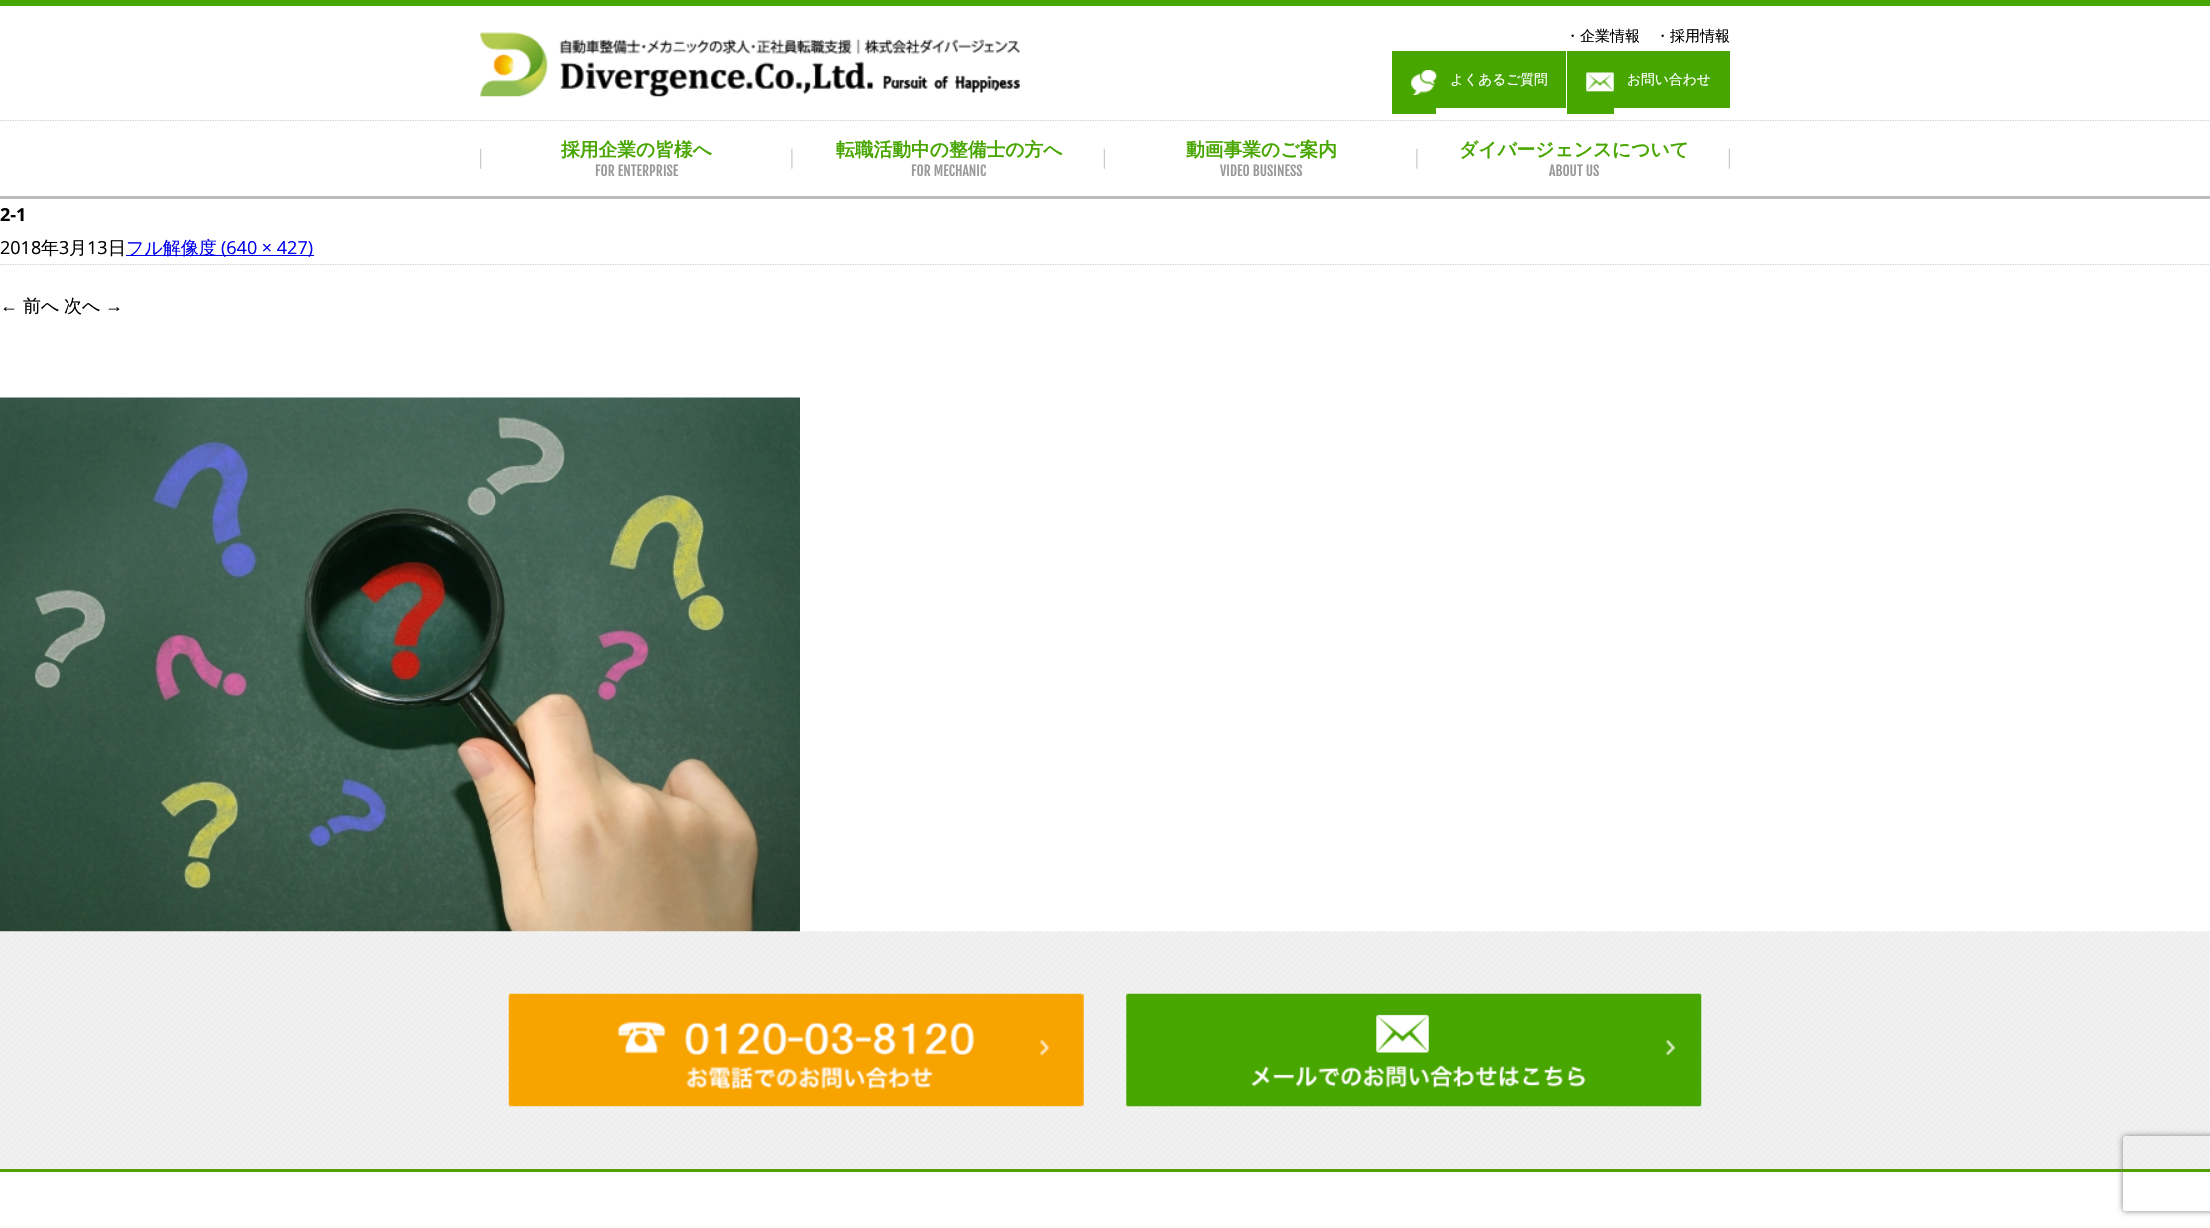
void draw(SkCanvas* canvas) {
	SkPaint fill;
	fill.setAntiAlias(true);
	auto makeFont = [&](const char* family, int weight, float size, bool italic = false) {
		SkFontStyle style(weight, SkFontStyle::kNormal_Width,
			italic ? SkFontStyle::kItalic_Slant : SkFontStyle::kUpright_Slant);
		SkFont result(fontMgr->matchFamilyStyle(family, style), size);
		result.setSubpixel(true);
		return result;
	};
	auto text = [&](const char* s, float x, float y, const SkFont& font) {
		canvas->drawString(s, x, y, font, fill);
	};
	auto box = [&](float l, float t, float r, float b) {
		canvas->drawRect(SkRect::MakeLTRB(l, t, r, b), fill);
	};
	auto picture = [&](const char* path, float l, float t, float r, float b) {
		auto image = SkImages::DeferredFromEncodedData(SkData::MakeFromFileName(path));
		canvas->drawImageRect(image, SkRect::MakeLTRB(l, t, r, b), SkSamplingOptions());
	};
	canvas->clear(0xFFFFFFFF);
	fill.setColor(0xFF48A600);
	box(0, 0, 2210, 6);
	picture("image0.png", 480, 32, 1020, 97);
	box(1392, 51, 1436, 114);
	box(1436, 51, 1566, 108);
	picture("image1.png", 1411, 70, 1437, 95);
	box(1567, 51, 1614, 114);
	picture("image2.png", 1586, 72, 1614, 92);
	box(1614, 51, 1730, 108);
	fill.setStyle(SkPaint::kStroke_Style);
	fill.setStrokeWidth(1.2f);
	fill.setColor(0xFFCCCCCC);
	fill.setPathEffect(SkDashPathEffect::Make({{1.25f, 1.25f}}, 0));
	canvas->drawPath(SkPathBuilder().moveTo(0, 120.5f).lineTo(2210, 120.5f).detach(), fill);
	fill.setPathEffect(nullptr);
	fill.setStyle(SkPaint::kFill_Style);
	fill.setColor(0xFFBBBBBB);
	box(0, 196, 2210, 199);
	picture("image3.png", 480, 148, 482, 169);
	picture("image4.png", 791, 148, 793, 169);
	picture("image5.png", 1103, 148, 1105, 169);
	picture("image4.png", 1416, 148, 1418, 169);
	picture("image5.png", 1728, 148, 1730, 169);
	fill.setColor(0xFF0000EE);
	box(126, 255, 314, 256);
	fill.setStyle(SkPaint::kStroke_Style);
	fill.setColor(0xFFCCCCCC);
	fill.setPathEffect(SkDashPathEffect::Make({{1.25f, 1.25f}}, 0));
	canvas->drawPath(SkPathBuilder().moveTo(0, 264.5f).lineTo(2210, 264.5f).detach(), fill);
	fill.setPathEffect(nullptr);
	picture("image7.png", 0, 931, 2210, 1169);
	picture("image6.png", 0, 397, 800, 932);
	fill.setStyle(SkPaint::kFill_Style);
	fill.setColor(0xFF549F00);
	box(0, 1169, 2210, 1172);
	picture("image8.png", 508, 993, 1084, 1107);
	picture("image9.png", 1126, 993, 1702, 1107);
	canvas->save();
	canvas->clipPath(SkPathBuilder(SkPathFillType::kEvenOdd).moveTo(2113, 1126).lineTo(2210, 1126).lineTo(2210, 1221).lineTo(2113, 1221).close().moveTo(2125.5f, 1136).lineTo(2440.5f, 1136).cubicTo(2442, 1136, 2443, 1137, 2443, 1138.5f).lineTo(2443, 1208.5f).cubicTo(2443, 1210, 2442, 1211, 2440.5f, 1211).lineTo(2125.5f, 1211).cubicTo(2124, 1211, 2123, 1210, 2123, 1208.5f).lineTo(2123, 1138.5f).cubicTo(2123, 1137, 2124, 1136, 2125.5f, 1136).close().detach(), true);
	fill.setColor(0xFF808080);
	fill.setMaskFilter(SkMaskFilter::MakeBlur(kNormal_SkBlurStyle, 3));
	canvas->drawRoundRect(SkRect::MakeLTRB(2123, 1136, 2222, 1211), 2.5f, 2.5f, fill);
	fill.setMaskFilter(nullptr);
	canvas->restore();
	auto font1 = makeFont("WenQuanYi Zen Hei", 500, 15);
	fill.setColor(0xFF000000);
	text("・企業情報", 1565, 41, font1);
	text("・採用情報", 1655, 41, font1);
	auto font2 = makeFont("WenQuanYi Zen Hei", 500, 13.75f);
	fill.setColor(0xFFFFFFFF);
	text("よくあるご質問", 1450, 84, font2);
	text("お問い合わせ", 1627, 84, font2);
	auto font3 = makeFont("WenQuanYi Zen Hei", 700, 18.75f);
	fill.setColor(0xFF48A600);
	text("採用企業の皆様へ", 561, 156, font3);
	auto font4 = makeFont("Fjalla One", 400, 13.75f);
	fill.setColor(0xFF999999);
	text("FOR ENTERPRISE", 595, 176, font4);
	fill.setColor(0xFF48A600);
	text("転職活動中の整備士の方へ", 836, 156, font3);
	fill.setColor(0xFF999999);
	text("FOR MECHANIC", 911, 176, font4);
	fill.setColor(0xFF48A600);
	text("動画事業のご案内", 1186, 156, font3);
	fill.setColor(0xFF999999);
	text("VIDEO BUSINESS", 1220, 176, font4);
	fill.setColor(0xFF48A600);
	text("ダイバージェンスについて", 1459, 156, font3);
	fill.setColor(0xFF999999);
	text("ABOUT US", 1549, 176, font4);
	auto font5 = makeFont("Open Sans", 700, 18);
	fill.setColor(0xFF000000);
	text("2-1", 0, 221, font5);
	auto font6 = makeFont("Open Sans", 400, 18);
	text("2018", 0, 254, font6);
	auto font7 = makeFont("WenQuanYi Zen Hei", 500, 18);
	text("年", 41, 254, font7);
	text("3", 59, 254, font6);
	text("月", 69, 254, font7);
	text("13", 87, 254, font6);
	text("日", 108, 254, font7);
	fill.setColor(0xFF0000EE);
	text("フル解像度", 126, 254, font7);
	text("(640 × 427)", 221, 254, font6);
	auto font8 = makeFont("Liberation Sans", 400, 18);
	fill.setColor(0xFF000000);
	text("←", 0, 312, font8);
	text("前へ", 23, 312, font7);
	text("次へ", 64, 312, font7);
	text("→", 105, 312, font8);
}
